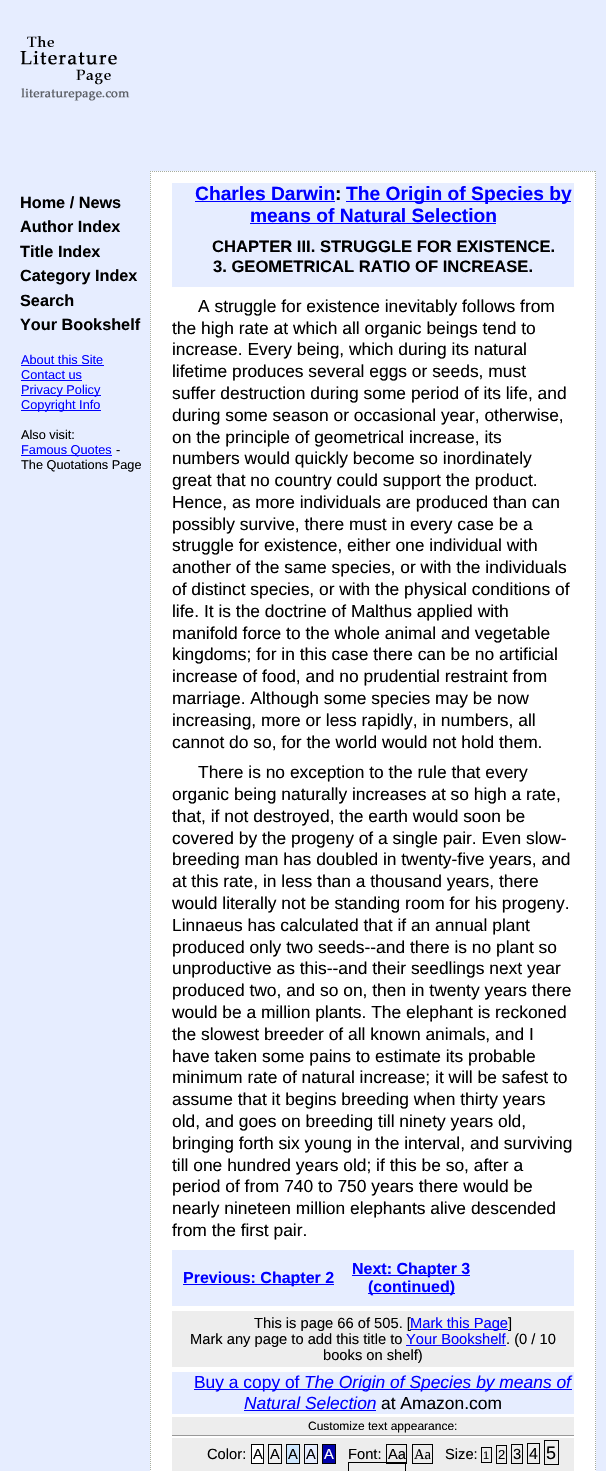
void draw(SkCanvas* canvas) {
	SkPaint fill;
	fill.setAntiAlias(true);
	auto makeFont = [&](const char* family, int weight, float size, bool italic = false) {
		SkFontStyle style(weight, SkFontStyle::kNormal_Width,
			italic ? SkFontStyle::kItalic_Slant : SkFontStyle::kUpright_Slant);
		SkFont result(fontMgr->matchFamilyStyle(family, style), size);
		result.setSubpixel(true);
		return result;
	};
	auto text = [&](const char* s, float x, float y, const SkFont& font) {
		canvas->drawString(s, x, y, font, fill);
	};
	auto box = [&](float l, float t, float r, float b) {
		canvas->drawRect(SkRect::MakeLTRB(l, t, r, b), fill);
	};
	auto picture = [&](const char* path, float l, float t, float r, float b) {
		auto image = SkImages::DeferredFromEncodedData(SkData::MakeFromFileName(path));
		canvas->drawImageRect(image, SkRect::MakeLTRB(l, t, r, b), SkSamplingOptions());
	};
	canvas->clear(0xFFE6EDFF);
	picture("image0.png", 20, 36, 130, 101);
	fill.setColor(0xFF0000FF);
	box(21, 365, 104, 366);
	box(21, 380, 82, 381);
	box(21, 395, 101, 396);
	box(21, 410, 101, 411);
	box(21, 455, 112, 456);
	fill.setColor(0xFFFFFFFF);
	box(150, 171, 596, 1471);
	fill.setStyle(SkPaint::kStroke_Style);
	fill.setStrokeWidth(1);
	fill.setColor(0xFFA6AD9F);
	fill.setPathEffect(SkDashPathEffect::Make({{1, 1}}, 0));
	canvas->drawPath(SkPathBuilder().moveTo(150, 171.5f).lineTo(596, 171.5f).detach(), fill);
	fill.setPathEffect(nullptr);
	fill.setPathEffect(SkDashPathEffect::Make({{1, 1}}, 0));
	canvas->drawPath(SkPathBuilder().moveTo(595.5f, 171).lineTo(595.5f, 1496).detach(), fill);
	fill.setPathEffect(nullptr);
	fill.setPathEffect(SkDashPathEffect::Make({{1, 1}}, 0));
	canvas->drawPath(SkPathBuilder().moveTo(150.5f, 171).lineTo(150.5f, 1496).detach(), fill);
	fill.setPathEffect(nullptr);
	fill.setStyle(SkPaint::kFill_Style);
	fill.setColor(0xFFE6EDFF);
	box(172, 183, 574, 287);
	fill.setColor(0xFF0000FF);
	box(195, 201, 335, 202);
	box(346, 201, 571, 202);
	box(250, 223, 496, 224);
	fill.setColor(0xFFE6EDFF);
	box(172, 1250, 574, 1306);
	fill.setColor(0xFF0000FF);
	box(183, 1284, 334, 1285);
	box(352, 1275, 470, 1276);
	box(368, 1293, 455, 1294);
	fill.setColor(0xFFEDEDED);
	box(172, 1311, 574, 1367);
	fill.setColor(0xFF0000FF);
	box(406, 1345, 506, 1346);
	fill.setColor(0xFFE6EDFF);
	box(172, 1372, 574, 1414);
	fill.setColor(0xFF0000FF);
	box(194, 1389, 572, 1390);
	box(244, 1410, 376, 1411);
	fill.setColor(0xFFEDEDED);
	box(172, 1417, 574, 1435);
	fill.setColor(0xFF999999);
	box(172, 1435, 574, 1436);
	fill.setColor(0xFFEDEDED);
	box(172, 1438, 574, 1471);
	fill.setColor(0xFFFFFFFF);
	canvas->drawRect(SkRect::MakeLTRB(251.5f, 1444.5f, 263.5f, 1463.5f), fill);
	fill.setStyle(SkPaint::kStroke_Style);
	fill.setColor(0xFF000000);
	canvas->drawRect(SkRect::MakeLTRB(251.5f, 1444.5f, 263.5f, 1463.5f), fill);
	fill.setStyle(SkPaint::kFill_Style);
	fill.setColor(0xFFF0F0F0);
	canvas->drawRect(SkRect::MakeLTRB(268.5f, 1444.5f, 281.5f, 1463.5f), fill);
	fill.setStyle(SkPaint::kStroke_Style);
	fill.setColor(0xFF000000);
	canvas->drawRect(SkRect::MakeLTRB(268.5f, 1444.5f, 281.5f, 1463.5f), fill);
	fill.setStyle(SkPaint::kFill_Style);
	fill.setColor(0xFFCEE7FF);
	canvas->drawRect(SkRect::MakeLTRB(286.5f, 1444.5f, 299.5f, 1463.5f), fill);
	fill.setStyle(SkPaint::kStroke_Style);
	fill.setColor(0xFF000000);
	canvas->drawRect(SkRect::MakeLTRB(286.5f, 1444.5f, 299.5f, 1463.5f), fill);
	fill.setStyle(SkPaint::kFill_Style);
	fill.setColor(0xFFE6EDFF);
	canvas->drawRect(SkRect::MakeLTRB(304.5f, 1444.5f, 317.5f, 1463.5f), fill);
	fill.setStyle(SkPaint::kStroke_Style);
	fill.setColor(0xFF000000);
	canvas->drawRect(SkRect::MakeLTRB(304.5f, 1444.5f, 317.5f, 1463.5f), fill);
	fill.setStyle(SkPaint::kFill_Style);
	fill.setColor(0xFF0000AA);
	canvas->drawRect(SkRect::MakeLTRB(322.5f, 1444.5f, 335.5f, 1463.5f), fill);
	fill.setStyle(SkPaint::kStroke_Style);
	fill.setColor(0xFF000000);
	canvas->drawRect(SkRect::MakeLTRB(322.5f, 1444.5f, 335.5f, 1463.5f), fill);
	canvas->drawRect(SkRect::MakeLTRB(386.5f, 1444.5f, 406.5f, 1463.5f), fill);
	canvas->drawRect(SkRect::MakeLTRB(412.5f, 1444.5f, 432.5f, 1463.5f), fill);
	canvas->drawRect(SkRect::MakeLTRB(481.5f, 1447.5f, 491.5f, 1462.5f), fill);
	canvas->drawRect(SkRect::MakeLTRB(496.5f, 1445.5f, 506.5f, 1463.5f), fill);
	canvas->drawRect(SkRect::MakeLTRB(511.5f, 1444.5f, 522.5f, 1463.5f), fill);
	canvas->drawRect(SkRect::MakeLTRB(527.5f, 1443.5f, 539.5f, 1463.5f), fill);
	canvas->drawRect(SkRect::MakeLTRB(544.5f, 1440.5f, 558.5f, 1464.5f), fill);
	canvas->drawRect(SkRect::MakeLTRB(348.5f, 1462.5f, 405.5f, 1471.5f), fill);
	auto font1 = makeFont("Liberation Sans", 700, 16.25f);
	fill.setStyle(SkPaint::kFill_Style);
	text("Home / News", 20, 208, font1);
	text("Author Index", 20, 232, font1);
	text("Title Index", 20, 257, font1);
	text("Category Index", 20, 281, font1);
	text("Search", 20, 306, font1);
	text("Your Bookshelf", 20, 330, font1);
	auto font2 = makeFont("Liberation Sans", 400, 12.75f);
	fill.setColor(0xFF0000FF);
	text("About this Site", 21, 364, font2);
	text("Contact us", 21, 379, font2);
	text("Privacy Policy", 21, 394, font2);
	text("Copyright Info", 21, 409, font2);
	fill.setColor(0xFF000000);
	text("Also visit:", 21, 439, font2);
	fill.setColor(0xFF0000FF);
	text("Famous Quotes", 21, 454, font2);
	fill.setColor(0xFF000000);
	text("-", 116, 454, font2);
	text("The Quotations Page", 21, 469, font2);
	auto font3 = makeFont("Liberation Sans", 700, 19.25f);
	fill.setColor(0xFF0000FF);
	text("Charles Darwin", 195, 200, font3);
	fill.setColor(0xFF000000);
	text(":", 335, 200, font3);
	fill.setColor(0xFF0000FF);
	text("The Origin of Species by", 346, 200, font3);
	text("means of Natural Selection", 250, 222, font3);
	auto font4 = makeFont("Liberation Sans", 700, 16.6f);
	fill.setColor(0xFF000000);
	text("CHAPTER III. STRUGGLE FOR EXISTENCE.", 212, 252, font4);
	text("3. GEOMETRICAL RATIO OF INCREASE.", 213, 272, font4);
	auto font5 = makeFont("Liberation Sans", 400, 17.4f);
	text("A struggle for existence inevitably follows from", 198, 312, font5);
	text("the high rate at which all organic beings tend to", 172, 334, font5);
	text("increase. Every being, which during its natural", 172, 355, font5);
	text("lifetime produces several eggs or seeds, must", 172, 377, font5);
	text("suffer destruction during some period of its life, and", 172, 399, font5);
	text("during some season or occasional year, otherwise,", 172, 421, font5);
	text("on the principle of geometrical increase, its", 172, 443, font5);
	text("numbers would quickly become so inordinately", 172, 464, font5);
	text("great that no country could support the product.", 172, 486, font5);
	text("Hence, as more individuals are produced than can", 172, 508, font5);
	text("possibly survive, there must in every case be a", 172, 530, font5);
	text("struggle for existence, either one individual with", 172, 551, font5);
	text("another of the same species, or with the individuals", 172, 573, font5);
	text("of distinct species, or with the physical conditions of", 172, 595, font5);
	text("life. It is the doctrine of Malthus applied with", 172, 617, font5);
	text("manifold force to the whole animal and vegetable", 172, 639, font5);
	text("kingdoms; for in this case there can be no artificial", 172, 660, font5);
	text("increase of food, and no prudential restraint from", 172, 682, font5);
	text("marriage. Although some species may be now", 172, 704, font5);
	text("increasing, more or less rapidly, in numbers, all", 172, 726, font5);
	text("cannot do so, for the world would not hold them.", 172, 748, font5);
	text("There is no exception to the rule that every", 198, 778, font5);
	text("organic being naturally increases at so high a rate,", 172, 800, font5);
	text("that, if not destroyed, the earth would soon be", 172, 822, font5);
	text("covered by the progeny of a single pair. Even slow-", 172, 844, font5);
	text("breeding man has doubled in twenty-five years, and", 172, 865, font5);
	text("at this rate, in less than a thousand years, there", 172, 887, font5);
	text("would literally not be standing room for his progeny.", 172, 909, font5);
	text("Linnaeus has calculated that if an annual plant", 172, 931, font5);
	text("produced only two seeds--and there is no plant so", 172, 953, font5);
	text("unproductive as this--and their seedlings next year", 172, 974, font5);
	text("produced two, and so on, then in twenty years there", 172, 996, font5);
	text("would be a million plants. The elephant is reckoned", 172, 1018, font5);
	text("the slowest breeder of all known animals, and I", 172, 1040, font5);
	text("have taken some pains to estimate its probable", 172, 1062, font5);
	text("minimum rate of natural increase; it will be safest to", 172, 1083, font5);
	text("assume that it begins breeding when thirty years", 172, 1105, font5);
	text("old, and goes on breeding till ninety years old,", 172, 1127, font5);
	text("bringing forth six young in the interval, and surviving", 172, 1149, font5);
	text("till one hundred years old; if this be so, after a", 172, 1171, font5);
	text("period of from 740 to 750 years there would be", 172, 1192, font5);
	text("nearly nineteen million elephants alive descended", 172, 1214, font5);
	text("from the first pair.", 172, 1236, font5);
	auto font6 = makeFont("Liberation Sans", 700, 16);
	fill.setColor(0xFF0000FF);
	text("Previous: Chapter 2", 183, 1283, font6);
	text("Next: Chapter 3", 352, 1274, font6);
	text("(continued)", 368, 1292, font6);
	auto font7 = makeFont("Liberation Sans", 400, 14.7f);
	fill.setColor(0xFF000000);
	text("This is page 66 of 505. [", 254, 1328, font7);
	fill.setColor(0xFF0000FF);
	box(410, 1329, 508, 1330);
	text("Mark this Page", 410, 1328, font7);
	fill.setColor(0xFF000000);
	text("]", 508, 1328, font7);
	text("Mark any page to add this title to", 190, 1344, font7);
	fill.setColor(0xFF0000FF);
	text("Your Bookshelf", 406, 1344, font7);
	fill.setColor(0xFF000000);
	text(". (0 / 10", 506, 1344, font7);
	text("books on shelf)", 323, 1360, font7);
	fill.setColor(0xFF0000FF);
	text("Buy a copy of", 194, 1388, font5);
	auto font8 = makeFont("Liberation Sans", 400, 17.4f, true);
	text("The Origin of Species by means of", 304, 1388, font8);
	text("Natural Selection", 244, 1409, font8);
	fill.setColor(0xFF000000);
	text("at Amazon.com", 381, 1409, font5);
	auto font9 = makeFont("Liberation Sans", 400, 12);
	text("Customize text appearance:", 308, 1430, font9);
	text("Color:", 207, 1459, font7);
	text("A", 253, 1459, font7);
	text("A", 270, 1459, font7);
	text("A", 288, 1459, font7);
	text("A", 306, 1459, font7);
	fill.setColor(0xFFFFFFFF);
	text("A", 324, 1459, font7);
	fill.setColor(0xFF000000);
	text("Font:", 348, 1459, font7);
	text("Aa", 388, 1459, font7);
	auto font10 = makeFont("Liberation Serif", 400, 14.7f);
	text("Aa", 414, 1459, font10);
	text("Size:", 445, 1459, font7);
	auto font11 = makeFont("Liberation Sans", 400, 11);
	text("1", 483, 1459, font11);
	auto font12 = makeFont("Liberation Sans", 400, 13);
	text("2", 498, 1459, font12);
	text("3", 513, 1459, font7);
	auto font13 = makeFont("Liberation Sans", 400, 16);
	text("4", 529, 1459, font13);
	auto font14 = makeFont("Liberation Sans", 400, 18);
	text("5", 546, 1459, font14);
}
